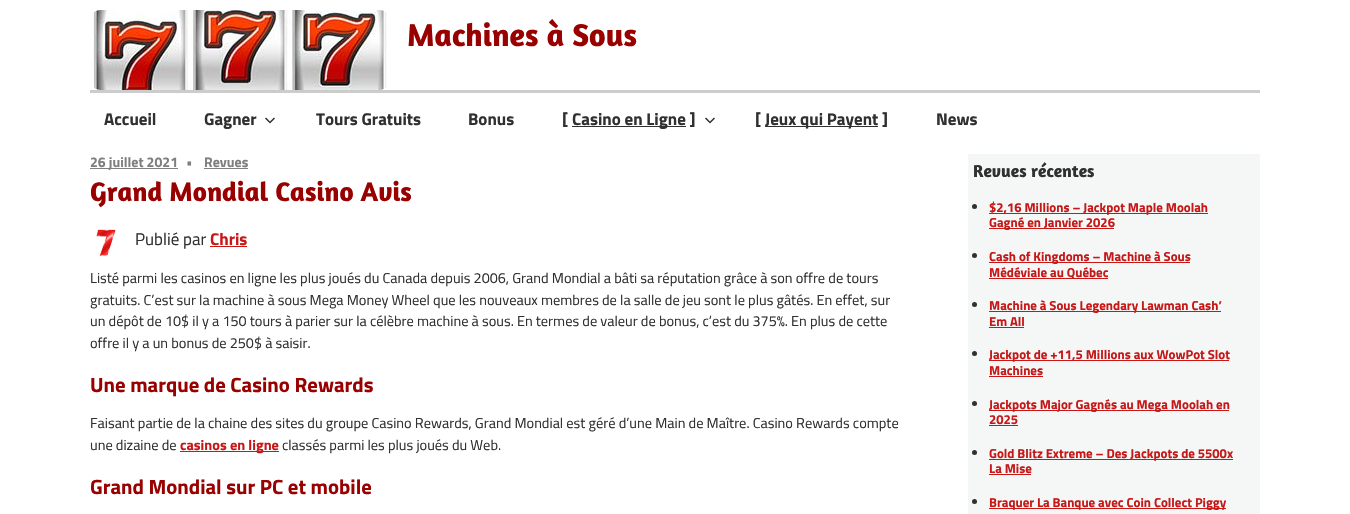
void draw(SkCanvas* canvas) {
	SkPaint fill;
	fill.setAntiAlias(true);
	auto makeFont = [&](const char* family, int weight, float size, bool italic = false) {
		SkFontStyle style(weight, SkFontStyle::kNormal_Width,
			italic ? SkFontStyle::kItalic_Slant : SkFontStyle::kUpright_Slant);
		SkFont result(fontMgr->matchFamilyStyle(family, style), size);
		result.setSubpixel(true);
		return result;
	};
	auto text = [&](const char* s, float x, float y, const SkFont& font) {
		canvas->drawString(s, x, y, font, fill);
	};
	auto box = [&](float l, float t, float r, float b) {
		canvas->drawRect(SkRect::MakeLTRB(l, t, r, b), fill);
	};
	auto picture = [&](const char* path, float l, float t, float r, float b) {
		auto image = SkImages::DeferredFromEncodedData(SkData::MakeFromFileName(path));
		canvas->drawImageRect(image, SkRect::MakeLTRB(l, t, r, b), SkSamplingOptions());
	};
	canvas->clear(0xFFFFFFFF);
	picture("image0.png", 92, 10, 387, 90);
	fill.setColor(0xFFCCCCCC);
	box(90, 90, 1260, 93);
	picture("image1.png", 265, 117, 275, 124);
	fill.setColor(0xFF303030);
	box(572, 126, 686, 127);
	picture("image1.png", 705, 117, 715, 124);
	box(765, 126, 878, 127);
	fill.setColor(0xFF808080);
	box(90, 168, 178, 169);
	box(204, 168, 248, 169);
	picture("image2.png", 96, 229, 116, 257);
	fill.setColor(0xFFC71818);
	box(210, 246, 247, 247);
	box(180, 451, 279, 452);
	fill.setColor(0xFFF5F7F7);
	box(968, 154, 1260, 514);
	fill.setColor(0xFF303030);
	canvas->drawCircle(974.5f, 206.5f, 2.5f, fill);
	fill.setColor(0xFFC71818);
	box(989, 213, 1208, 214);
	box(989, 228, 1114, 229);
	fill.setColor(0xFF303030);
	canvas->drawCircle(974.5f, 255.5f, 2.5f, fill);
	fill.setColor(0xFFC71818);
	box(989, 262, 1190, 263);
	box(989, 278, 1108, 279);
	fill.setColor(0xFF303030);
	canvas->drawCircle(974.5f, 304.5f, 2.5f, fill);
	fill.setColor(0xFFC71818);
	box(989, 311, 1221, 312);
	box(989, 327, 1024, 328);
	fill.setColor(0xFF303030);
	canvas->drawCircle(974.5f, 353.5f, 2.5f, fill);
	fill.setColor(0xFFC71818);
	box(989, 360, 1229, 361);
	box(989, 376, 1043, 377);
	fill.setColor(0xFF303030);
	canvas->drawCircle(974.5f, 403.5f, 2.5f, fill);
	fill.setColor(0xFFC71818);
	box(989, 410, 1229, 411);
	box(989, 425, 1018, 426);
	fill.setColor(0xFF303030);
	canvas->drawCircle(974.5f, 452.5f, 2.5f, fill);
	fill.setColor(0xFFC71818);
	box(989, 459, 1233, 460);
	box(989, 474, 1031, 475);
	fill.setColor(0xFF303030);
	canvas->drawCircle(974.5f, 501.5f, 2.5f, fill);
	fill.setColor(0xFFC71818);
	box(989, 508, 1226, 509);
	auto font1 = makeFont("Amaranth", 700, 32);
	fill.setColor(0xFF990000);
	text("Machines à Sous", 407, 46, font1);
	auto font2 = makeFont("Titillium Web", 700, 17);
	fill.setColor(0xFF303030);
	text("Accueil", 104, 125, font2);
	text("Gagner", 204, 125, font2);
	text("Tours Gratuits", 316, 125, font2);
	text("Bonus", 468, 125, font2);
	text("[", 562, 125, font2);
	text("Casino en Ligne ]", 572, 125, font2);
	text("[", 755, 125, font2);
	text("Jeux qui Payent ]", 765, 125, font2);
	text("News", 936, 125, font2);
	auto font3 = makeFont("Titillium Web", 700, 14);
	fill.setColor(0xFF7F7F7F);
	text("26 juillet 2021", 90, 167, font3);
	auto font4 = makeFont("Titillium Web", 400, 14);
	text("•", 186, 167, font4);
	text("Revues", 204, 167, font3);
	auto font5 = makeFont("Amaranth", 700, 27.25f);
	fill.setColor(0xFF990000);
	text("Grand Mondial Casino Avis", 90, 201, font5);
	auto font6 = makeFont("Titillium Web", 400, 17);
	fill.setColor(0xFF303030);
	text("Publié par", 135, 245, font6);
	fill.setColor(0xFFC71818);
	text("Chris", 210, 245, font2);
	auto font7 = makeFont("Titillium Web", 400, 14.4f);
	fill.setColor(0xFF303030);
	text("Listé parmi les casinos en ligne les plus joués du Canada depuis 2006, Grand Mondial a bâti sa réputation grâce à son offre de tours", 90, 283, font7);
	text("gratuits. C’est sur la machine à sous Mega Money Wheel que les nouveaux membres de la salle de jeu sont le plus gâtés. En effet, sur", 90, 305, font7);
	text("un dépôt de 10$ il y a 150 tours à parier sur la célèbre machine à sous. En termes de valeur de bonus, c’est du 375%. En plus de cette", 90, 326, font7);
	text("offre il y a un bonus de 250$ à saisir.", 90, 348, font7);
	auto font8 = makeFont("Titillium Web", 700, 20.75f);
	fill.setColor(0xFF990000);
	text("Une marque de Casino Rewards", 90, 392, font8);
	fill.setColor(0xFF303030);
	text("Faisant partie de la chaine des sites du groupe Casino Rewards, Grand Mondial est géré d’une Main de Maître. Casino Rewards compte", 90, 428, font7);
	text("une dizaine de", 90, 450, font7);
	auto font9 = makeFont("Titillium Web", 700, 14.4f);
	fill.setColor(0xFFC71818);
	text("casinos en ligne", 180, 450, font9);
	fill.setColor(0xFF303030);
	text("classés parmi les plus joués du Web.", 282, 450, font7);
	fill.setColor(0xFF990000);
	text("Grand Mondial sur PC et mobile", 90, 494, font8);
	auto font10 = makeFont("Amaranth", 700, 17.5f);
	fill.setColor(0xFF303030);
	text("Revues récentes", 973, 177, font10);
	auto font11 = makeFont("Titillium Web", 700, 13);
	fill.setColor(0xFFC71818);
	text("$2,16 Millions – Jackpot Maple Moolah", 989, 212, font11);
	text("Gagné en Janvier 2026", 989, 227, font11);
	text("Cash of Kingdoms – Machine à Sous", 989, 261, font11);
	text("Médéviale au Québec", 989, 277, font11);
	text("Machine à Sous Legendary Lawman Cash’", 989, 310, font11);
	text("Em All", 989, 326, font11);
	text("Jackpot de +11,5 Millions aux WowPot Slot", 989, 359, font11);
	text("Machines", 989, 375, font11);
	text("Jackpots Major Gagnés au Mega Moolah en", 989, 409, font11);
	text("2025", 989, 424, font11);
	text("Gold Blitz Extreme – Des Jackpots de 5500x", 989, 458, font11);
	text("La Mise", 989, 473, font11);
	text("Braquer La Banque avec Coin Collect Piggy", 989, 507, font11);
}
